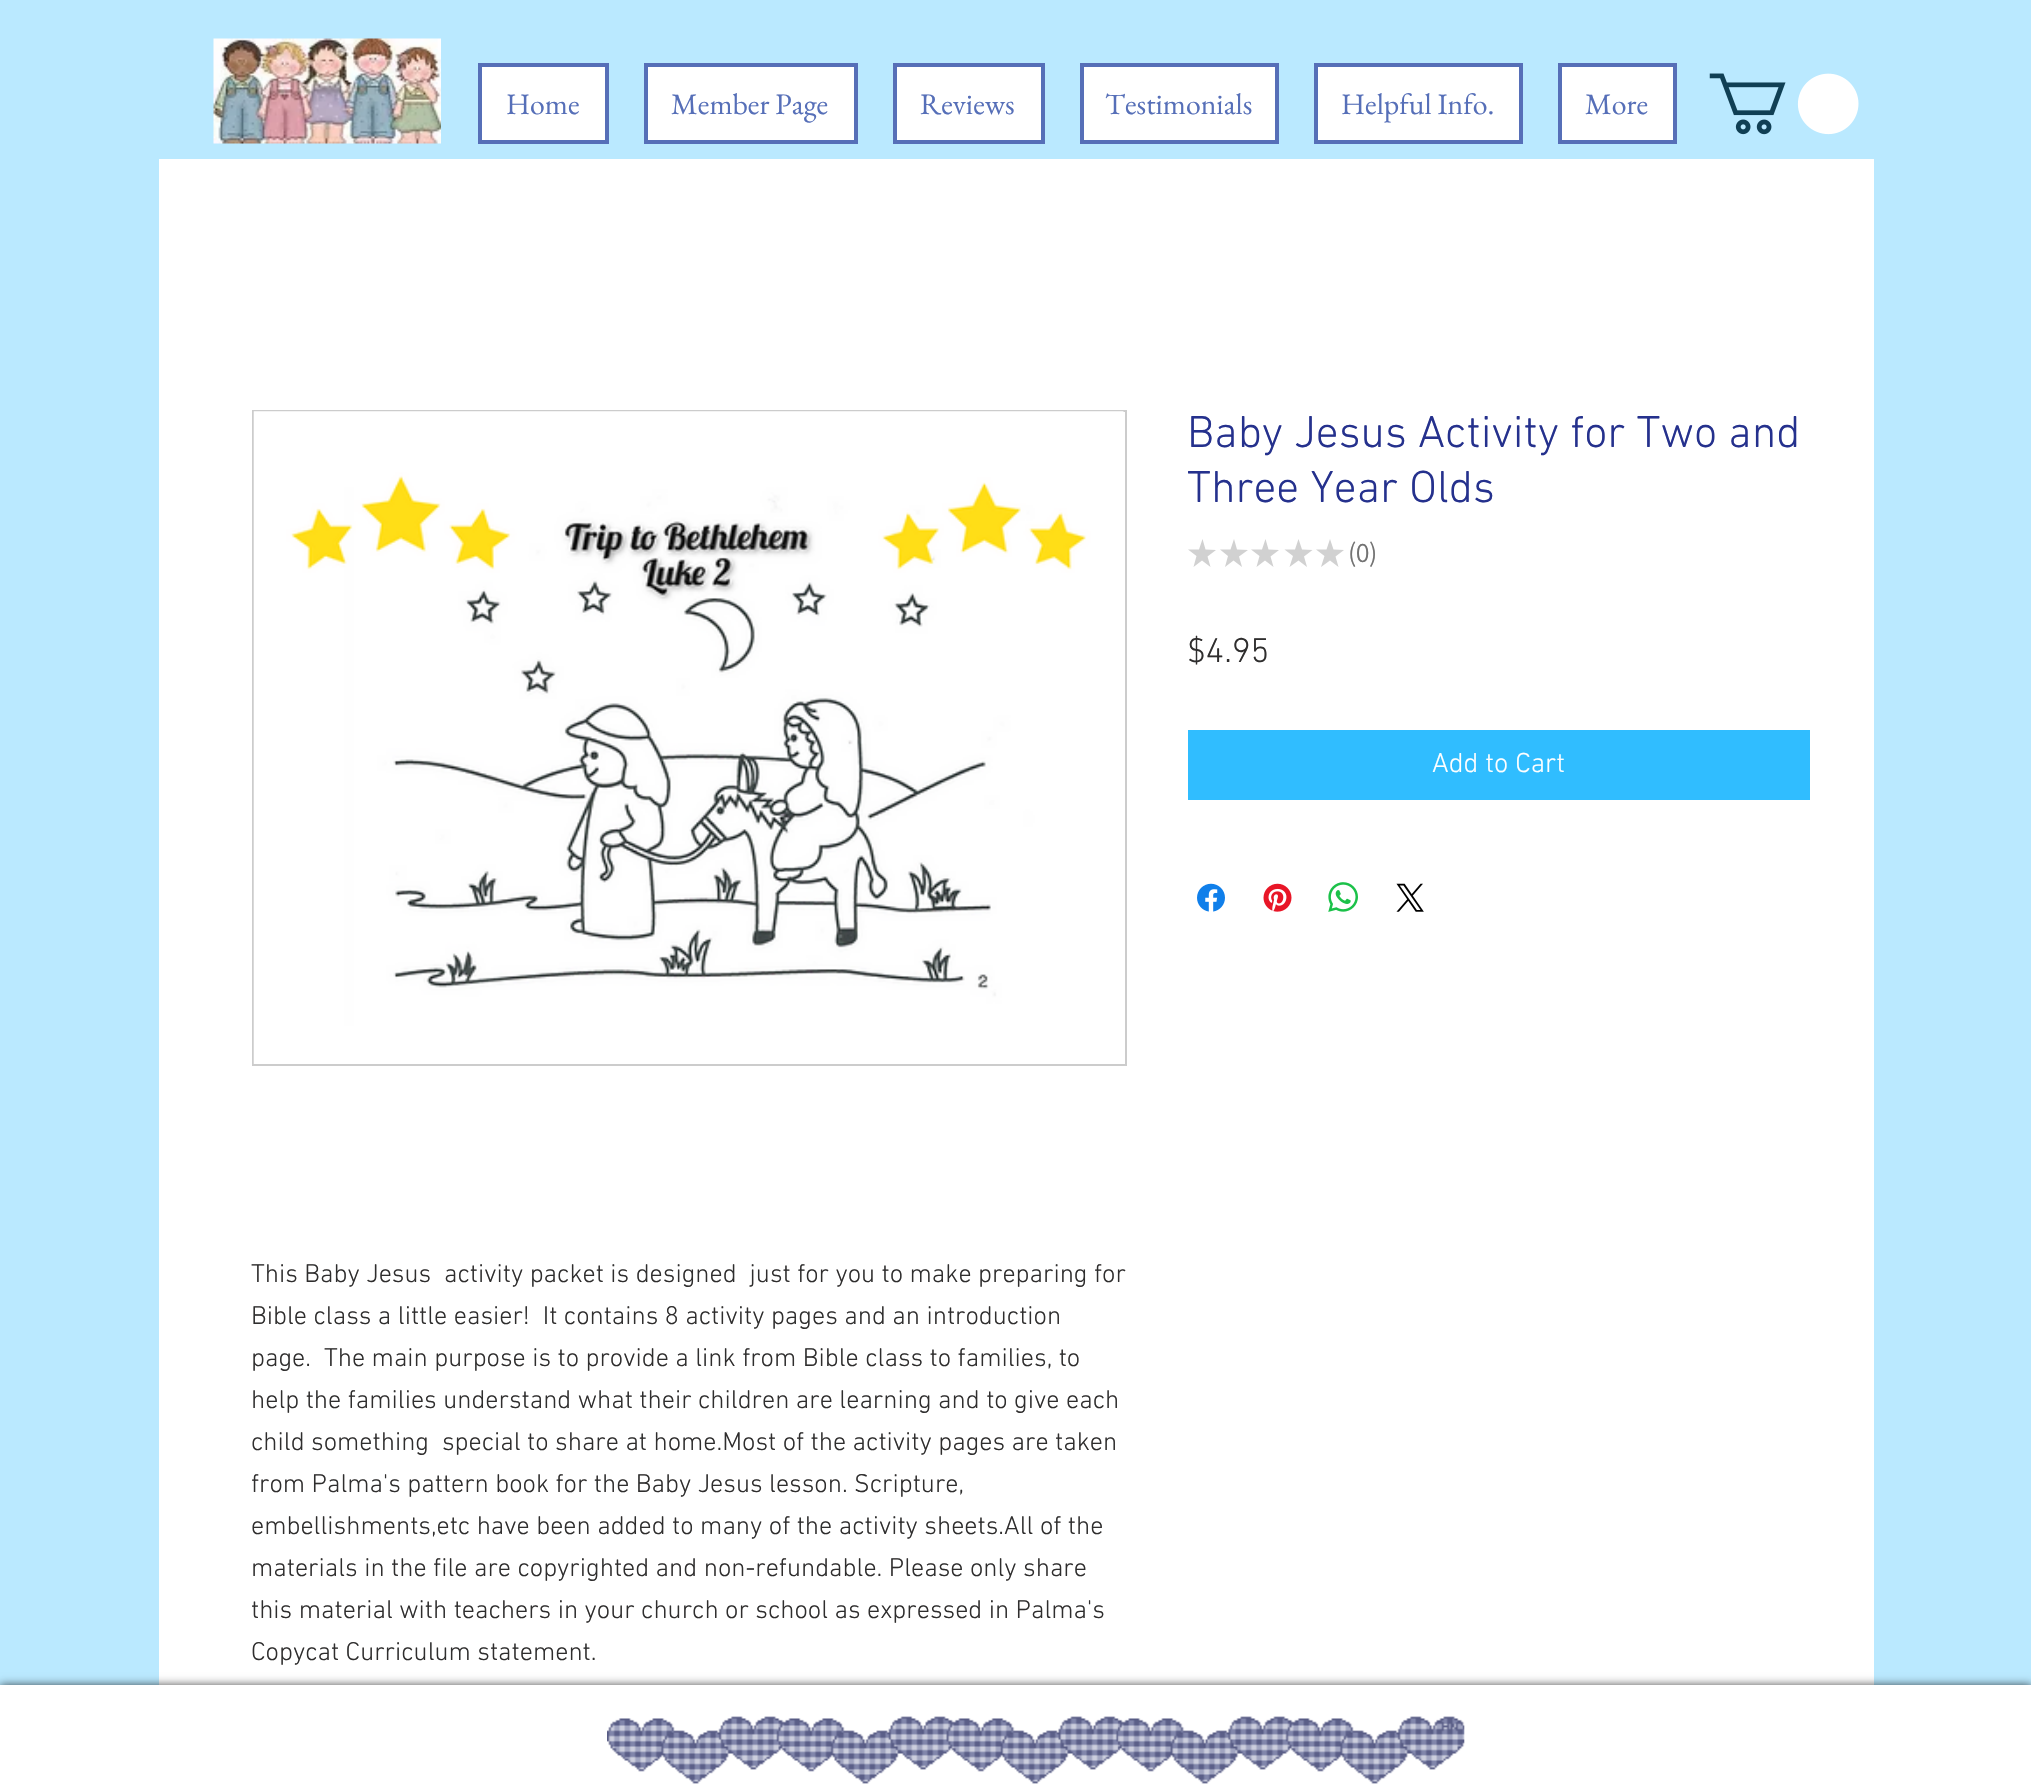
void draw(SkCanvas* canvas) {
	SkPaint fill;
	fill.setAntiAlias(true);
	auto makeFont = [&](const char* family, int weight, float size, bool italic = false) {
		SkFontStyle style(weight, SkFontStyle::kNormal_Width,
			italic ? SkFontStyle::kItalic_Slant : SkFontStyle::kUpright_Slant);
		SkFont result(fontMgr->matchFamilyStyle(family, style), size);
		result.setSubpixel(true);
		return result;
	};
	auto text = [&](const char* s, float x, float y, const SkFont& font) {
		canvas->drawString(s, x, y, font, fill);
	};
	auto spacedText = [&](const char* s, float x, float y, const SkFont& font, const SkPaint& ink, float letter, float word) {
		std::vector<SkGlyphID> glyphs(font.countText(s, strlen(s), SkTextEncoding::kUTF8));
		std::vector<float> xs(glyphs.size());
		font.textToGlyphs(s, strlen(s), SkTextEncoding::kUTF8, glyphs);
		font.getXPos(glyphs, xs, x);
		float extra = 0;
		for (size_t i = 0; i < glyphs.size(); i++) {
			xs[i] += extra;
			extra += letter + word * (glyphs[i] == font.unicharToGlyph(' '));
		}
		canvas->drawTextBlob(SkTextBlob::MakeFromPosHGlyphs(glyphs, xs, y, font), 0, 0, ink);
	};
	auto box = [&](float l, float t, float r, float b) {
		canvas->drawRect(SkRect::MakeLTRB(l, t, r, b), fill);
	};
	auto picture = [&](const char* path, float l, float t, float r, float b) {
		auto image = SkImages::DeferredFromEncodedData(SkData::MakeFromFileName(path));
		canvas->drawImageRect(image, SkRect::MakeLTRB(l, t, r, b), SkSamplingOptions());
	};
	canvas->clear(0xFFBAE9FF);
	picture("image0.png", 213, 38, 441, 144);
	fill.setColor(0xFFFFFFFF);
	canvas->drawRect(SkRect::MakeLTRB(480, 65, 607, 142), fill);
	fill.setStyle(SkPaint::kStroke_Style);
	fill.setStrokeWidth(4);
	fill.setColor(0xFF566FB8);
	canvas->drawRect(SkRect::MakeLTRB(480, 65, 607, 142), fill);
	fill.setStyle(SkPaint::kFill_Style);
	fill.setColor(0xFFFFFFFF);
	canvas->drawRect(SkRect::MakeLTRB(646, 65, 856, 142), fill);
	fill.setStyle(SkPaint::kStroke_Style);
	fill.setColor(0xFF566FB8);
	canvas->drawRect(SkRect::MakeLTRB(646, 65, 856, 142), fill);
	fill.setStyle(SkPaint::kFill_Style);
	fill.setColor(0xFFFFFFFF);
	canvas->drawRect(SkRect::MakeLTRB(895, 65, 1043, 142), fill);
	fill.setStyle(SkPaint::kStroke_Style);
	fill.setColor(0xFF566FB8);
	canvas->drawRect(SkRect::MakeLTRB(895, 65, 1043, 142), fill);
	fill.setStyle(SkPaint::kFill_Style);
	fill.setColor(0xFFFFFFFF);
	canvas->drawRect(SkRect::MakeLTRB(1082, 65, 1277, 142), fill);
	fill.setStyle(SkPaint::kStroke_Style);
	fill.setColor(0xFF566FB8);
	canvas->drawRect(SkRect::MakeLTRB(1082, 65, 1277, 142), fill);
	fill.setStyle(SkPaint::kFill_Style);
	fill.setColor(0xFFFFFFFF);
	canvas->drawRect(SkRect::MakeLTRB(1316, 65, 1521, 142), fill);
	fill.setStyle(SkPaint::kStroke_Style);
	fill.setColor(0xFF566FB8);
	canvas->drawRect(SkRect::MakeLTRB(1316, 65, 1521, 142), fill);
	fill.setStyle(SkPaint::kFill_Style);
	fill.setColor(0xFFFFFFFF);
	canvas->drawRect(SkRect::MakeLTRB(1560, 65, 1675, 142), fill);
	fill.setStyle(SkPaint::kStroke_Style);
	fill.setColor(0xFF566FB8);
	canvas->drawRect(SkRect::MakeLTRB(1560, 65, 1675, 142), fill);
	picture("image1.png", 1709, 73, 1859, 135);
	fill.setStyle(SkPaint::kFill_Style);
	fill.setColor(0xFFFFFFFF);
	box(159, 159, 1874, 1685);
	fill.setColor(0xFFD1D1D1);
	canvas->drawPath(SkPathBuilder().moveTo(1210.5f, 567).lineTo(1202, 560.5f).lineTo(1193.5f, 567).lineTo(1196.5f, 556).lineTo(1188, 549.5f).lineTo(1199, 549.5f).lineTo(1202.5f, 539).lineTo(1205.5f, 549.5f).lineTo(1216, 550).lineTo(1207.5f, 556.5f).close().moveTo(1242, 567).lineTo(1233.5f, 560.5f).lineTo(1225, 567).lineTo(1228, 556).lineTo(1220, 549.5f).lineTo(1230.5f, 549.5f).lineTo(1234, 539).lineTo(1237, 549.5f).lineTo(1248, 550).lineTo(1239, 556.5f).close().detach(), fill);
	canvas->drawPath(SkPathBuilder().moveTo(1273.5f, 567).lineTo(1265, 560.5f).lineTo(1256.5f, 567).lineTo(1259.5f, 556).lineTo(1251, 549.5f).lineTo(1262, 549.5f).lineTo(1265.5f, 539).lineTo(1268.5f, 549.5f).lineTo(1279, 550).lineTo(1270.5f, 556.5f).close().moveTo(1307, 567).lineTo(1298.5f, 560.5f).lineTo(1289.5f, 567).lineTo(1293, 556).lineTo(1284.5f, 549.5f).lineTo(1295, 549.5f).lineTo(1298.5f, 539).lineTo(1302, 549.5f).lineTo(1312.5f, 550).lineTo(1304, 556.5f).close().detach(), fill);
	canvas->drawPath(SkPathBuilder().moveTo(1338.5f, 567).lineTo(1330, 560.5f).lineTo(1321, 567).lineTo(1324.5f, 556).lineTo(1316, 549.5f).lineTo(1326.5f, 549.5f).lineTo(1330, 539).lineTo(1333.5f, 549.5f).lineTo(1344, 550).lineTo(1335.5f, 556.5f).close().detach(), fill);
	fill.setColor(0xFF30BDFF);
	box(1188, 730, 1810, 800);
	picture("image2.png", 1197, 883, 1225, 912);
	picture("image3.png", 1263, 883, 1292, 912);
	picture("image4.png", 1328, 882, 1358, 912);
	picture("image5.png", 1396, 883, 1424, 912);
	fill.setStyle(SkPaint::kStroke_Style);
	fill.setStrokeWidth(2);
	fill.setColor(0xFFCCCCCC);
	canvas->drawRect(SkRect::MakeLTRB(253, 411, 1126, 1065), fill);
	picture("image6.png", 253, 411, 1124, 1064);
	fill.setStyle(SkPaint::kFill_Style);
	fill.setColor(0xB3000000);
	fill.setMaskFilter(SkMaskFilter::MakeBlur(kNormal_SkBlurStyle, 4.5f));
	canvas->drawRect(SkRect::MakeLTRB(0, 1685, 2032, 1785), fill);
	fill.setMaskFilter(nullptr);
	fill.setColor(0xFFFFFFFF);
	box(0, 1685, 2031, 1785);
	picture("image7.png", 607, 1716, 1465, 1784);
	auto font1 = makeFont("EB Garamond", 400, 29.75f);
	fill.setColor(0xFF566FB8);
	text("Home", 506, 114, font1);
	text("Member Page", 671, 114, font1);
	text("Reviews", 920, 114, font1);
	text("Testimonials", 1105, 114, font1);
	text("Helpful Info.", 1341, 114, font1);
	text("More", 1585, 114, font1);
	auto font2 = makeFont("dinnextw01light", 300, 45.5f);
	fill.setColor(0xFF25318D);
	text("Baby Jesus Activity for Two and", 1187, 447, font2);
	text("Three Year Olds", 1187, 502, font2);
	auto font3 = makeFont("Assistant", 400, 28);
	fill.setColor(0xFF737373);
	spacedText("(0)", 1348, 562, font3, fill, -0.5f, 0);
	auto font4 = makeFont("dinnextw01light", 300, 35);
	fill.setColor(0xFF2F2E2E);
	text("$4.95", 1187, 662, font4);
	auto font5 = makeFont("dinnextw01light", 300, 28);
	fill.setColor(0xFFFFFFFF);
	text("Add to Cart", 1432, 772, font5);
	auto font6 = makeFont("dinnextw01light", 300, 26.25f);
	fill.setColor(0xFF2F2E2E);
	text("This Baby Jesus  activity packet is designed  just for you to make preparing for", 251, 1282, font6);
	text("Bible class a little easier!  It contains 8 activity pages and an introduction", 251, 1324, font6);
	text("page.  The main purpose is to provide a link from Bible class to families, to", 251, 1366, font6);
	text("help the families understand what their children are learning and to give each", 251, 1408, font6);
	text("child something  special to share at home.Most of the activity pages are taken", 251, 1450, font6);
	text("from Palma's pattern book for the Baby Jesus lesson. Scripture,", 251, 1492, font6);
	text("embellishments,etc have been added to many of the activity sheets.All of the", 251, 1534, font6);
	text("materials in the file are copyrighted and non-refundable. Please only share", 251, 1576, font6);
	text("this material with teachers in your church or school as expressed in Palma's", 251, 1618, font6);
	text("Copycat Curriculum statement.", 251, 1660, font6);
}
